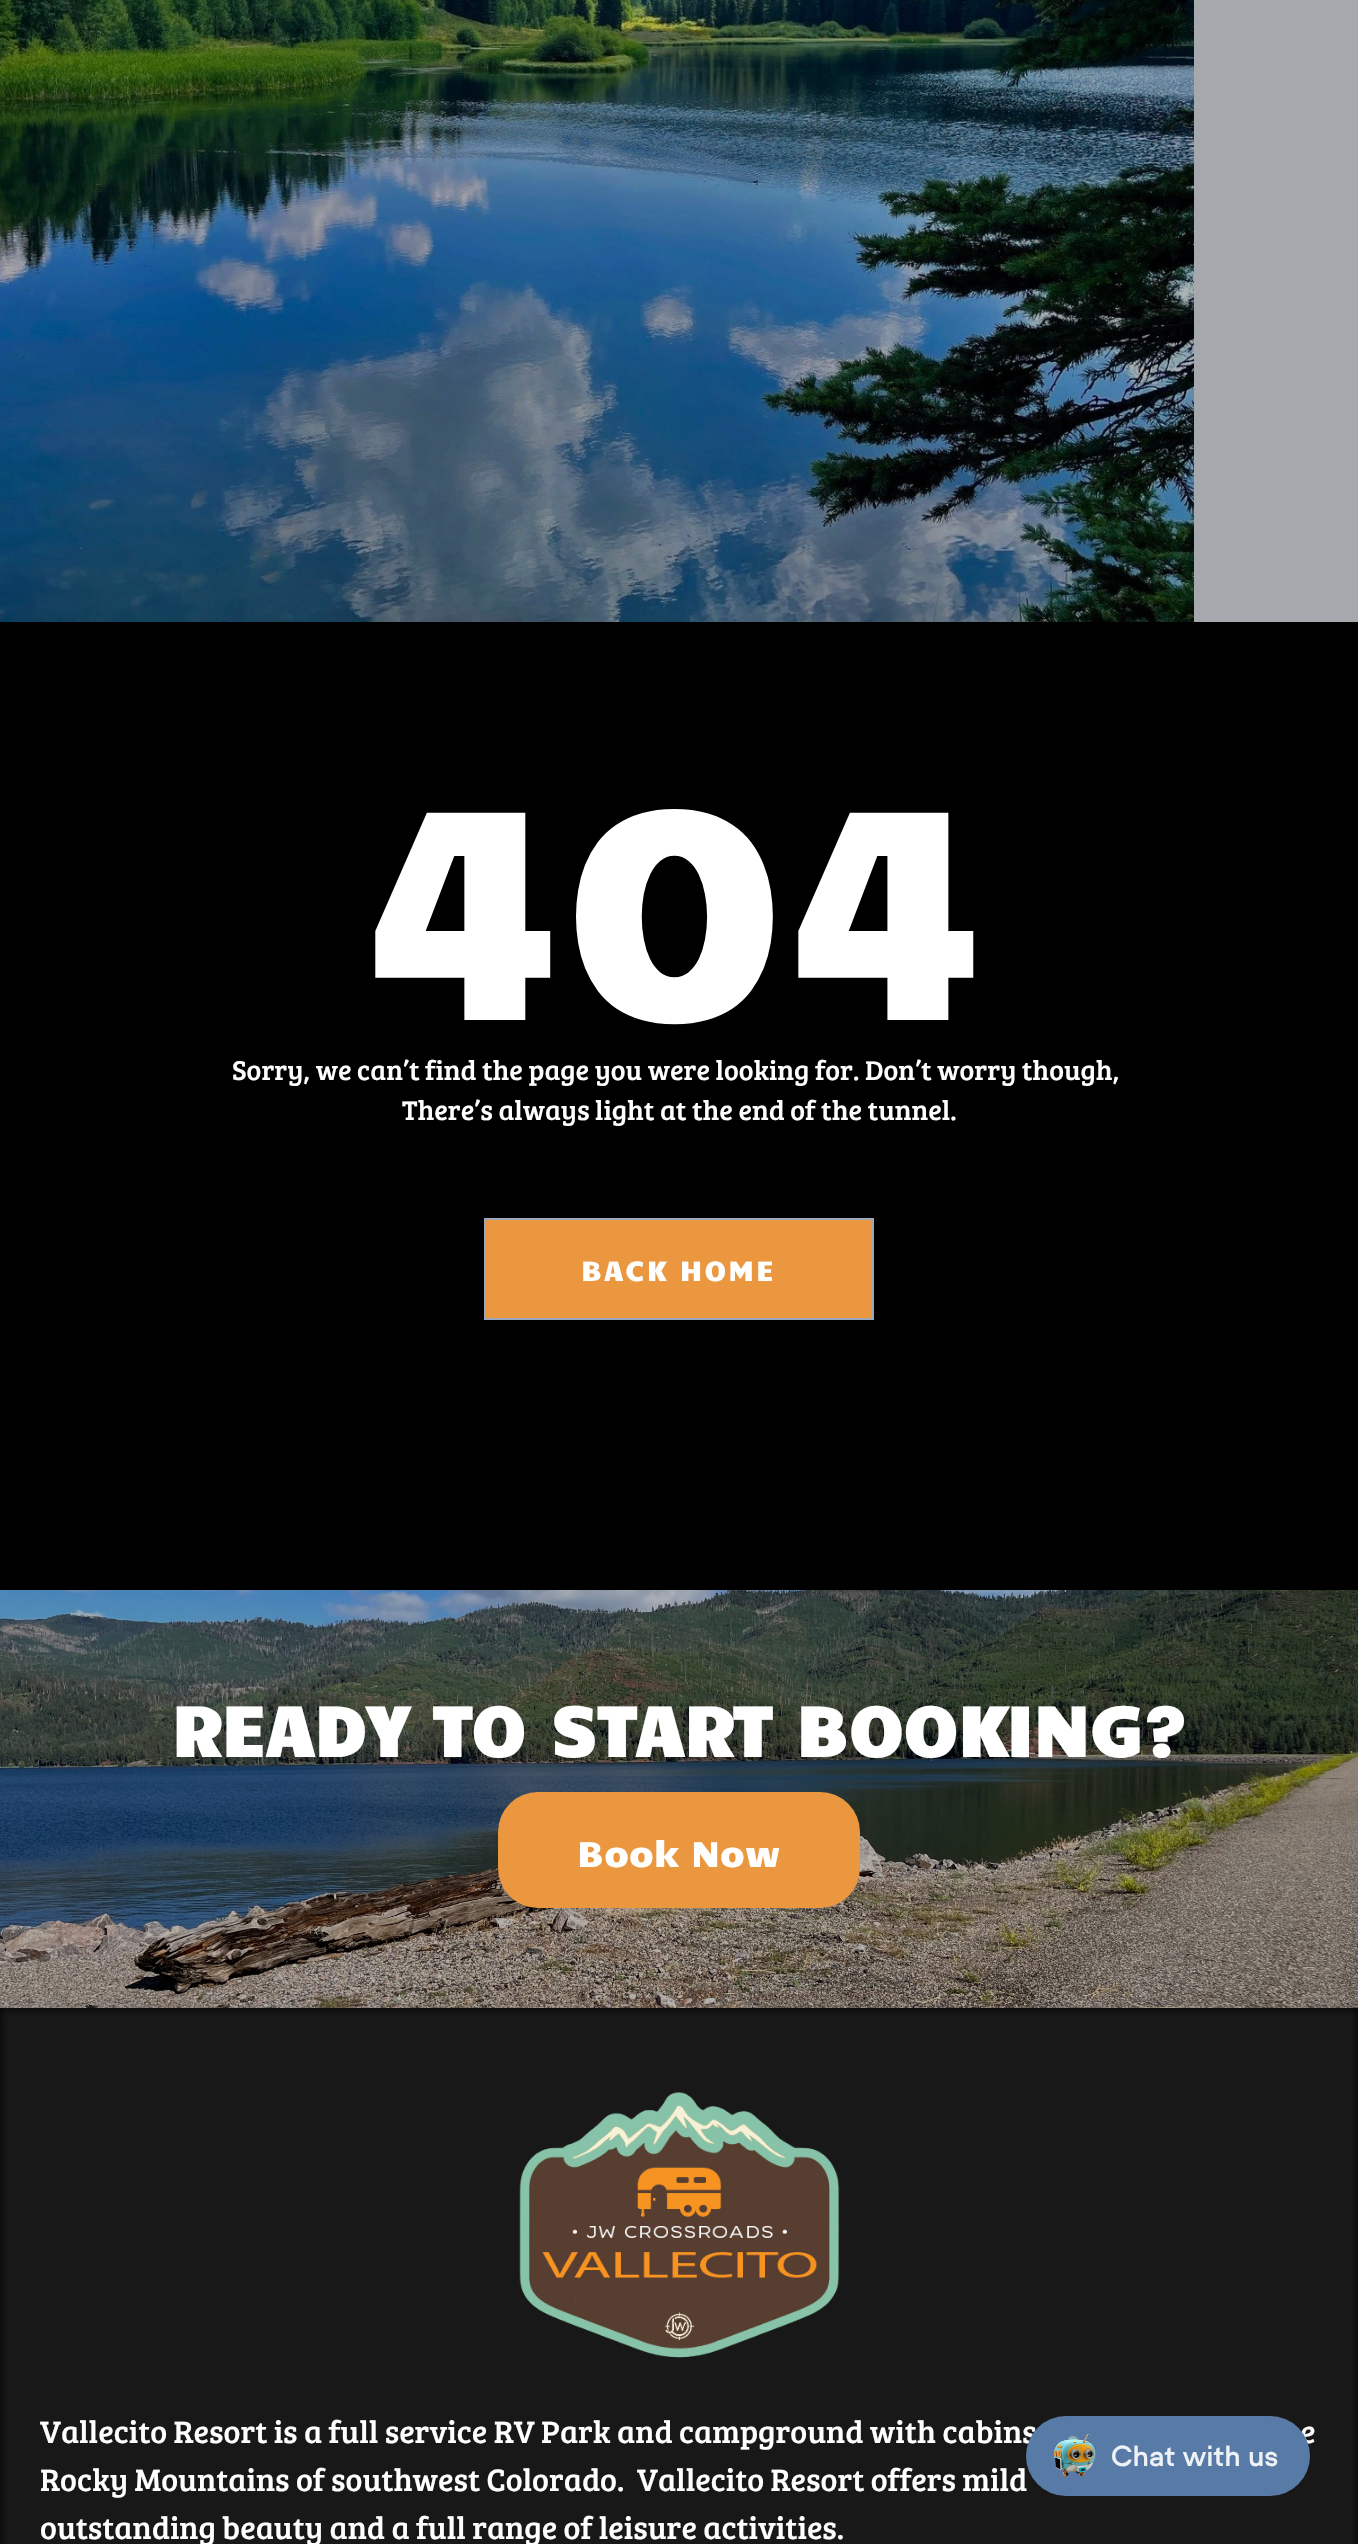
void draw(SkCanvas* canvas) {
	SkPaint fill;
	fill.setAntiAlias(true);
	auto makeFont = [&](const char* family, int weight, float size, bool italic = false) {
		SkFontStyle style(weight, SkFontStyle::kNormal_Width,
			italic ? SkFontStyle::kItalic_Slant : SkFontStyle::kUpright_Slant);
		SkFont result(fontMgr->matchFamilyStyle(family, style), size);
		result.setSubpixel(true);
		return result;
	};
	auto text = [&](const char* s, float x, float y, const SkFont& font) {
		canvas->drawString(s, x, y, font, fill);
	};
	auto spacedText = [&](const char* s, float x, float y, const SkFont& font, const SkPaint& ink, float letter, float word) {
		std::vector<SkGlyphID> glyphs(font.countText(s, strlen(s), SkTextEncoding::kUTF8));
		std::vector<float> xs(glyphs.size());
		font.textToGlyphs(s, strlen(s), SkTextEncoding::kUTF8, glyphs);
		font.getXPos(glyphs, xs, x);
		float extra = 0;
		for (size_t i = 0; i < glyphs.size(); i++) {
			xs[i] += extra;
			extra += letter + word * (glyphs[i] == font.unicharToGlyph(' '));
		}
		canvas->drawTextBlob(SkTextBlob::MakeFromPosHGlyphs(glyphs, xs, y, font), 0, 0, ink);
	};
	auto box = [&](float l, float t, float r, float b) {
		canvas->drawRect(SkRect::MakeLTRB(l, t, r, b), fill);
	};
	auto roundBox = [&](float l, float t, float r, float b, float radius) {
		canvas->drawRoundRect(SkRect::MakeLTRB(l, t, r, b), radius, radius, fill);
	};
	auto picture = [&](const char* path, float l, float t, float r, float b) {
		auto image = SkImages::DeferredFromEncodedData(SkData::MakeFromFileName(path));
		canvas->drawImageRect(image, SkRect::MakeLTRB(l, t, r, b), SkSamplingOptions());
	};
	canvas->clear(0xFFA5A8AC);
	picture("image0.png", 0, 0, 1194, 622);
	fill.setColor(0xFF000000);
	box(0, 622, 1358, 1590);
	fill.setColor(0xFFEA9740);
	canvas->drawRect(SkRect::MakeLTRB(485, 1219, 873, 1319), fill);
	fill.setStyle(SkPaint::kStroke_Style);
	fill.setStrokeWidth(2);
	fill.setColor(0xFF9AA8BA);
	canvas->drawRect(SkRect::MakeLTRB(485, 1219, 873, 1319), fill);
	picture("image1.png", 0, 1590, 1358, 2008);
	fill.setStyle(SkPaint::kFill_Style);
	fill.setColor(0xFFEA9740);
	roundBox(498, 1792, 860, 1908, 40);
	fill.setColor(0xFF000000);
	box(0, 2008, 1358, 2544);
	fill.setColor(0x3D656565);
	fill.setMaskFilter(SkMaskFilter::MakeBlur(kNormal_SkBlurStyle, 4.5f));
	canvas->drawRect(SkRect::MakeLTRB(0, 2008, 1358, 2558), fill);
	fill.setMaskFilter(nullptr);
	picture("image2.png", 519, 2092, 840, 2358);
	auto font1 = makeFont("Candal", 400, 300);
	fill.setColor(0xFFFFFFFF);
	text("404", 363, 1020, font1);
	auto font2 = makeFont("Bree Serif", 400, 28);
	text("Sorry, we can’t find the page you were looking for. Don’t worry though,", 232, 1080, font2);
	text("There’s always light at the end of the tunnel.", 402, 1120, font2);
	auto font3 = makeFont("Candal", 400, 28);
	spacedText("BACK HOME", 581, 1281, font3, fill, 2, 0);
	auto font4 = makeFont("Candal", 700, 70);
	text("READY TO START BOOKING?", 171, 1757, font4);
	auto font5 = makeFont("Candal", 400, 36);
	text("Book Now", 577, 1867, font5);
	auto font6 = makeFont("Bree Serif", 400, 32);
	text("Vallecito Resort is a full service RV Park and campground with cabins", 40, 2443, font6);
	text("e", 1300, 2443, font6);
	text("Rocky Mountains of southwest Colorado.  Vallecito Resort offers mild", 40, 2491, font6);
	text("outstanding beauty and a full range of leisure activities.", 40, 2539, font6);
	fill.setStyle(SkPaint::kStroke_Style);
	fill.setColor(0x0A161A1E);
	canvas->drawRect(SkRect::MakeLTRB(1025, 2415, 1311, 2497), fill);
	fill.setStyle(SkPaint::kFill_Style);
	fill.setColor(0xFF587AA7);
	roundBox(1026, 2416, 1310, 2496, 40);
	picture("image3.png", 1053, 2434, 1096, 2478);
	auto font7 = makeFont("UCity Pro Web", 600, 28);
	fill.setColor(0xFFEEF2F6);
	text("Chat with us", 1111, 2466, font7);
}
